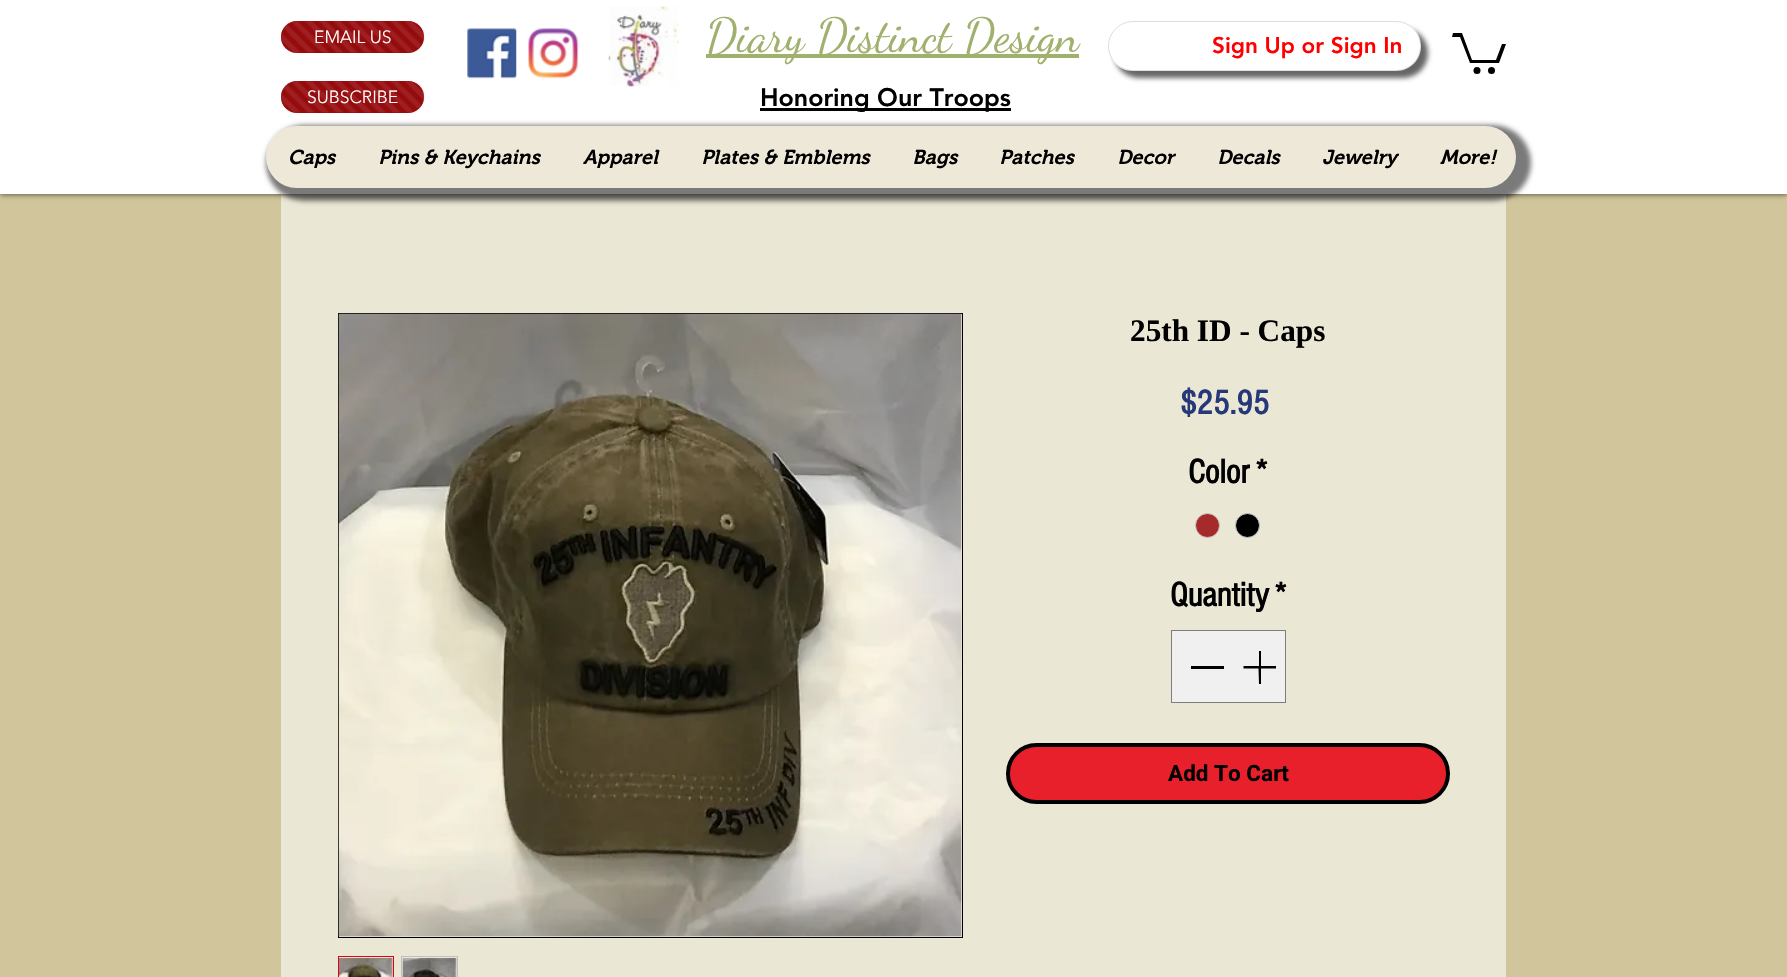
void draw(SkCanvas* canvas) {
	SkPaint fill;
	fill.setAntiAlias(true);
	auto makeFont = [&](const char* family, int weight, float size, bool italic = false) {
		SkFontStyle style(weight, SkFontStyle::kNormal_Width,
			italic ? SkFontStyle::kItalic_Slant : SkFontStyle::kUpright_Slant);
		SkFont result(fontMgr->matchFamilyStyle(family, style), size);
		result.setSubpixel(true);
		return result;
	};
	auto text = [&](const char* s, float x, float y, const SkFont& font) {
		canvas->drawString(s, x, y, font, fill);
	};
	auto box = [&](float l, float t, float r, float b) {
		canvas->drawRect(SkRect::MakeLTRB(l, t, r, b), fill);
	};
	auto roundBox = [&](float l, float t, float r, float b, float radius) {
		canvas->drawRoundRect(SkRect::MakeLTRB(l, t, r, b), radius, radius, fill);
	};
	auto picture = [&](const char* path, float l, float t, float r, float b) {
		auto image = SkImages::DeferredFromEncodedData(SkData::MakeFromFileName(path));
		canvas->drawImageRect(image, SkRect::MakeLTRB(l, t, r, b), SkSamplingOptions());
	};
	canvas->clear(0xFFD1C69B);
	fill.setColor(0xFFEBE7D5);
	box(281, 194, 1506, 977);
	fill.setColor(0xB3000000);
	fill.setMaskFilter(SkMaskFilter::MakeBlur(kNormal_SkBlurStyle, 3));
	canvas->drawRect(SkRect::MakeLTRB(0, 0, 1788, 194), fill);
	fill.setMaskFilter(nullptr);
	fill.setColor(0xFFFFFFFF);
	box(0, 0, 1787, 194);
	fill.setColor(0xFF950B0B);
	roundBox(281, 21, 424, 53, 16);
	picture("image0.png", 281, 21, 425, 53);
	picture("image1.png", 467, 28, 517, 79);
	picture("image2.png", 528, 28, 579, 79);
	picture("image3.png", 608, 6, 679, 87);
	fill.setColor(0xFFA0B06D);
	box(706, 54, 1079, 58);
	canvas->save();
	canvas->clipPath(SkPathBuilder(SkPathFillType::kEvenOdd).moveTo(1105, 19).lineTo(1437, 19).lineTo(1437, 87).lineTo(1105, 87).close().moveTo(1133, 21).lineTo(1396, 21).cubicTo(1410, 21, 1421, 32, 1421, 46).cubicTo(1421, 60, 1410, 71, 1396, 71).lineTo(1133, 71).cubicTo(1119, 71, 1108, 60, 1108, 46).cubicTo(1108, 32, 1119, 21, 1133, 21).close().detach(), true);
	fill.setColor(0x99000000);
	fill.setMaskFilter(SkMaskFilter::MakeBlur(kNormal_SkBlurStyle, 2.5f));
	canvas->drawRoundRect(SkRect::MakeLTRB(1114, 28, 1428, 78), 25, 25, fill);
	fill.setMaskFilter(nullptr);
	canvas->restore();
	fill.setStyle(SkPaint::kStroke_Style);
	fill.setStrokeWidth(1);
	fill.setColor(0x29303030);
	canvas->drawRoundRect(SkRect::MakeLTRB(1108.5f, 21.5f, 1420.5f, 70.5f), 24.5f, 24.5f, fill);
	fill.setStyle(SkPaint::kFill_Style);
	fill.setColor(0xFF000000);
	canvas->drawPath(SkPathBuilder().moveTo(1506, 44).lineTo(1499, 63).lineTo(1470, 63).lineTo(1460, 37).lineTo(1452, 37).lineTo(1453, 33).lineTo(1462, 33).lineTo(1472, 60).lineTo(1496, 60).lineTo(1502, 44).detach(), fill);
	canvas->drawCircle(1491.5f, 70.5f, 3.5f, fill);
	canvas->drawCircle(1477, 70.5f, 3.5f, fill);
	fill.setColor(0xFF950B0B);
	roundBox(281, 81, 424, 113, 16);
	picture("image0.png", 281, 81, 425, 113);
	fill.setColor(0xFF000000);
	box(760, 108, 1011, 111);
	fill.setColor(0x85000000);
	fill.setMaskFilter(SkMaskFilter::MakeBlur(kNormal_SkBlurStyle, 2.5f));
	canvas->drawRoundRect(SkRect::MakeLTRB(266, 125, 1531, 201), 38, 38, fill);
	fill.setMaskFilter(nullptr);
	fill.setColor(0xFFEEE8D8);
	roundBox(266, 126, 1516, 188, 31);
	fill.setStyle(SkPaint::kStroke_Style);
	fill.setColor(0xFF000000);
	canvas->drawRect(SkRect::MakeLTRB(338.5f, 313.5f, 962.5f, 937.5f), fill);
	picture("image4.png", 338, 313, 962, 937);
	fill.setColor(0xFFE6000F);
	canvas->drawRect(SkRect::MakeLTRB(338.5f, 956.5f, 393.5f, 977.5f), fill);
	picture("image5.png", 339, 958, 393, 977);
	fill.setColor(0xFFC0C0C0);
	canvas->drawRect(SkRect::MakeLTRB(401.5f, 956.5f, 457.5f, 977.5f), fill);
	picture("image6.png", 402, 958, 457, 977);
	fill.setStyle(SkPaint::kFill_Style);
	fill.setColor(0xFFA52A2A);
	canvas->drawCircle(1207.5f, 525.5f, 12, fill);
	fill.setStyle(SkPaint::kStroke_Style);
	fill.setColor(0xFFC9C9C9);
	canvas->drawCircle(1207.5f, 525.5f, 12, fill);
	fill.setStyle(SkPaint::kFill_Style);
	fill.setColor(0xFF000000);
	canvas->drawCircle(1247.5f, 525.5f, 12, fill);
	fill.setStyle(SkPaint::kStroke_Style);
	fill.setColor(0xFFC9C9C9);
	canvas->drawCircle(1247.5f, 525.5f, 12, fill);
	fill.setStyle(SkPaint::kFill_Style);
	fill.setColor(0xFFF0F0F0);
	canvas->drawRect(SkRect::MakeLTRB(1171.5f, 630.5f, 1285.5f, 702.5f), fill);
	fill.setStyle(SkPaint::kStroke_Style);
	fill.setColor(0xFF7D7D7D);
	canvas->drawRect(SkRect::MakeLTRB(1171.5f, 630.5f, 1285.5f, 702.5f), fill);
	fill.setStyle(SkPaint::kFill_Style);
	fill.setColor(0xFF000000);
	box(1191, 666, 1224, 669);
	canvas->drawPath(SkPathBuilder(SkPathFillType::kEvenOdd).moveTo(1261, 651).lineTo(1261, 666).lineTo(1276, 666).lineTo(1276, 668.5f).lineTo(1261, 668.5f).lineTo(1261, 684).lineTo(1259, 684).lineTo(1258.5f, 668.5f).lineTo(1243.5f, 668.5f).lineTo(1243.5f, 666).lineTo(1259, 666).lineTo(1259, 651).close().detach(), fill);
	fill.setColor(0xFFE7202B);
	canvas->drawRoundRect(SkRect::MakeLTRB(1008, 745, 1448, 802), 28.5f, 28.5f, fill);
	fill.setStyle(SkPaint::kStroke_Style);
	fill.setStrokeWidth(4);
	fill.setColor(0xFF000000);
	canvas->drawRoundRect(SkRect::MakeLTRB(1008, 745, 1448, 802), 28.5f, 28.5f, fill);
	auto font1 = makeFont("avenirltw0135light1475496", 300, 17.5f);
	fill.setStyle(SkPaint::kFill_Style);
	fill.setColor(0xFFFFFFFF);
	text("EMAIL US", 314, 43, font1);
	auto font2 = makeFont("Dancing Script", 400, 47.5f);
	fill.setColor(0xFFA0B06D);
	text("Diary Distinct Design", 706, 51, font2);
	auto font3 = makeFont("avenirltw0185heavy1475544", 900, 22.5f);
	fill.setColor(0xFFFF0000);
	text("Sign Up or Sign In", 1212, 53, font3);
	fill.setColor(0xFFFFFFFF);
	text("SUBSCRIBE", 307, 103, font1);
	auto font4 = makeFont("avenirltw0185heavy1475544", 900, 25);
	fill.setColor(0xFF000000);
	text("Honoring Our Troops", 760, 106, font4);
	auto font5 = makeFont("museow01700", 600, 20, true);
	text("Caps", 288, 164, font5);
	text("Pins & Keychains", 378, 164, font5);
	text("Apparel", 583, 164, font5);
	text("Plates & Emblems", 701, 164, font5);
	text("Bags", 912, 164, font5);
	text("Patches", 999, 164, font5);
	text("Decor", 1117, 164, font5);
	text("Decals", 1217, 164, font5);
	text("Jewelry", 1322, 164, font5);
	text("More!", 1440, 164, font5);
	auto font6 = makeFont("Liberation Serif", 700, 31.25f);
	text("25th ID - Caps", 1130, 341, font6);
	auto font7 = makeFont("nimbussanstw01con", 700, 35);
	fill.setColor(0xFF273878);
	text("$25.95", 1180, 414, font7);
	fill.setColor(0xFF000000);
	text("Color", 1188, 483, font7);
	text("*", 1255, 483, font7);
	text("Quantity", 1170, 606, font7);
	text("*", 1274, 606, font7);
	auto font8 = makeFont("Roboto", 700, 22.5f);
	text("Add To Cart", 1168, 781, font8);
}
